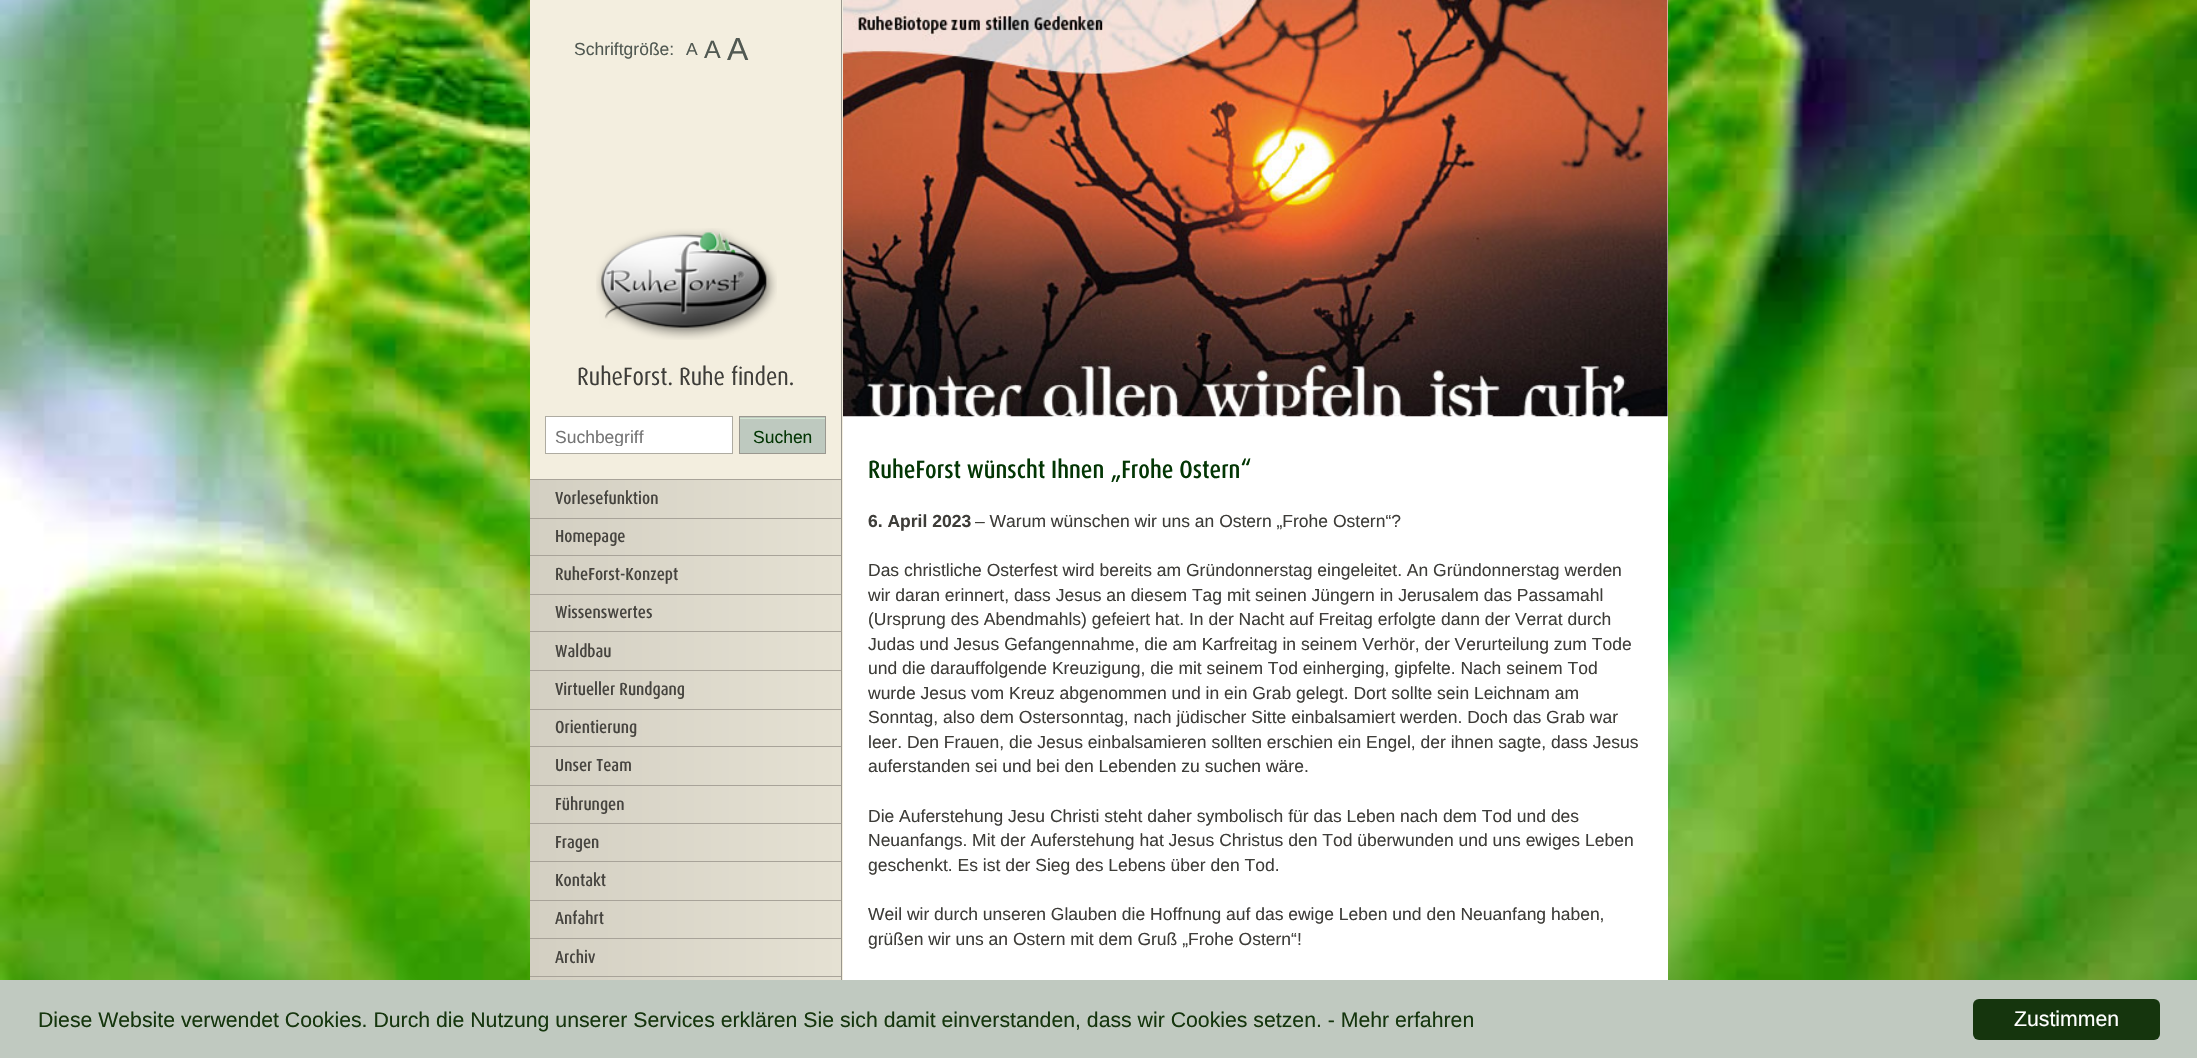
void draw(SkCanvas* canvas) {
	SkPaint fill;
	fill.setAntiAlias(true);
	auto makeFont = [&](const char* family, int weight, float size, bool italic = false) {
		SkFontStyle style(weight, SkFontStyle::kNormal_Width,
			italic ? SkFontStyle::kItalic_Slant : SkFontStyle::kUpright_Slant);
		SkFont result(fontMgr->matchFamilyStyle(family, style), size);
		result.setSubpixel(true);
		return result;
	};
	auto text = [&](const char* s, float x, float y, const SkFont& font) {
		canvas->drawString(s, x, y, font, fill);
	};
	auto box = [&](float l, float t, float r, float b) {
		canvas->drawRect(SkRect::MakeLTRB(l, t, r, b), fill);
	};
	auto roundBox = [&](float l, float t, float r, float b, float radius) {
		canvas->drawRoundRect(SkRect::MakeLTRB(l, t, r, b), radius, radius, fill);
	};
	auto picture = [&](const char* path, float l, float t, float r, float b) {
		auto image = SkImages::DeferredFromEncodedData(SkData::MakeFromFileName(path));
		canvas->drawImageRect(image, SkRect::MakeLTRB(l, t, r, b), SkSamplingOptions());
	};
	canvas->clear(0xFFFFFFFF);
	picture("image0.png", 0, 0, 2197, 980);
	fill.setColor(0xFFF3EEDF);
	box(530, 0, 843, 980);
	fill.setColor(0xFF99968D);
	box(841, 0, 842, 980);
	picture("image1.png", 596, 228, 777, 340);
	fill.setColor(0xFFFFFFFF);
	canvas->drawRect(SkRect::MakeLTRB(545.5f, 416.5f, 732.5f, 453.5f), fill);
	fill.setStyle(SkPaint::kStroke_Style);
	fill.setStrokeWidth(1);
	fill.setColor(0xFFAEABA1);
	canvas->drawRect(SkRect::MakeLTRB(545.5f, 416.5f, 732.5f, 453.5f), fill);
	fill.setStyle(SkPaint::kFill_Style);
	fill.setColor(0xFFBEC9BF);
	box(740, 417, 825, 453);
	fill.setColor(0xFFD2E6D2);
	box(740, 418, 825, 419);
	fill.setStyle(SkPaint::kStroke_Style);
	fill.setColor(0xFF9A9890);
	canvas->drawRect(SkRect::MakeLTRB(739.5f, 416.5f, 825.5f, 453.5f), fill);
	fill.setStyle(SkPaint::kFill_Style);
	{
		const SkColor colors[] = {0xFFD3CFC2, 0xFFE5E1D3};
		const float stops[] = {0, 1};
		const SkPoint ends[] = {{530, 766}, {841, 766}};
		fill.setShader(SkGradientShader::MakeLinear(ends, colors, stops, 2, SkTileMode::kClamp));
		fill.setAlpha(255);
	}
	box(530, 480, 841, 980);
	fill.setShader(nullptr);
	fill.setColor(0xFFA8A399);
	box(530, 479, 841, 480);
	box(530, 518, 841, 519);
	box(530, 555, 841, 556);
	box(530, 594, 841, 595);
	box(530, 631, 841, 632);
	box(530, 670, 841, 671);
	box(530, 709, 841, 710);
	box(530, 746, 841, 747);
	box(530, 785, 841, 786);
	box(530, 823, 841, 824);
	box(530, 861, 841, 862);
	box(530, 900, 841, 901);
	box(530, 938, 841, 939);
	box(530, 976, 841, 977);
	fill.setColor(0xFFFFFFFF);
	box(843, 0, 1668, 980);
	picture("image2.png", 843, 0, 1668, 417);
	fill.setColor(0xFFC0C9C0);
	box(0, 980, 2197, 1058);
	fill.setColor(0xFF15350D);
	roundBox(1973, 999, 2160, 1040, 6);
	auto font1 = makeFont("Liberation Sans", 400, 17.5f);
	fill.setColor(0xFF515952);
	text("Schriftgröße:", 574, 55, font1);
	text("A", 686, 55, font1);
	auto font2 = makeFont("Liberation Sans", 400, 25);
	text("A", 704, 58, font2);
	auto font3 = makeFont("Liberation Sans", 400, 32);
	text("A", 727, 60, font3);
	auto font4 = makeFont("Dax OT", 400, 25);
	fill.setColor(0xFF3E3D39);
	text("RuheForst. Ruhe finden.", 577, 385, font4);
	canvas->save();
	canvas->clipRect(SkRect::MakeLTRB(555, 426, 723, 446));
	fill.setColor(0xFF757575);
	text("Suchbegriff", 555, 443, font1);
	canvas->restore();
	fill.setColor(0xFF033604);
	text("Suchen", 753, 443, font1);
	auto font5 = makeFont("Dax OT", 500, 17.5f);
	fill.setColor(0xFF46443F);
	text("Vorlesefunktion", 555, 504, font5);
	text("Homepage", 555, 542, font5);
	text("RuheForst-Konzept", 555, 580, font5);
	text("Wissenswertes", 555, 618, font5);
	text("Waldbau", 555, 657, font5);
	text("Virtueller Rundgang", 555, 695, font5);
	text("Orientierung", 555, 733, font5);
	text("Unser Team", 555, 771, font5);
	text("Führungen", 555, 810, font5);
	text("Fragen", 555, 848, font5);
	text("Kontakt", 555, 886, font5);
	text("Anfahrt", 555, 924, font5);
	text("Archiv", 555, 963, font5);
	auto font6 = makeFont("Dax OT", 500, 25);
	fill.setColor(0xFF033604);
	text("RuheForst wünscht Ihnen „Frohe Ostern“", 868, 478, font6);
	auto font7 = makeFont("Liberation Sans", 700, 17.5f);
	fill.setColor(0xFF3E3D39);
	text("6. April 2023", 868, 527, font7);
	text("– Warum wünschen wir uns an Ostern „Frohe Ostern“?", 975, 527, font1);
	text("Das christliche Osterfest wird bereits am Gründonnerstag eingeleitet. An Gründonnerstag werden", 868, 576, font1);
	text("wir daran erinnert, dass Jesus an diesem Tag mit seinen Jüngern in Jerusalem das Passamahl", 868, 601, font1);
	text("(Ursprung des Abendmahls) gefeiert hat. In der Nacht auf Freitag erfolgte dann der Verrat durch", 868, 625, font1);
	text("Judas und Jesus Gefangennahme, die am Karfreitag in seinem Verhör, der Verurteilung zum Tode", 868, 650, font1);
	text("und die darauffolgende Kreuzigung, die mit seinem Tod einherging, gipfelte. Nach seinem Tod", 868, 674, font1);
	text("wurde Jesus vom Kreuz abgenommen und in ein Grab gelegt. Dort sollte sein Leichnam am", 868, 699, font1);
	text("Sonntag, also dem Ostersonntag, nach jüdischer Sitte einbalsamiert werden. Doch das Grab war", 868, 723, font1);
	text("leer. Den Frauen, die Jesus einbalsamieren sollten erschien ein Engel, der ihnen sagte, dass Jesus", 868, 748, font1);
	text("auferstanden sei und bei den Lebenden zu suchen wäre.", 868, 772, font1);
	text("Die Auferstehung Jesu Christi steht daher symbolisch für das Leben nach dem Tod und des", 868, 822, font1);
	text("Neuanfangs. Mit der Auferstehung hat Jesus Christus den Tod überwunden und uns ewiges Leben", 868, 846, font1);
	text("geschenkt. Es ist der Sieg des Lebens über den Tod.", 868, 871, font1);
	text("Weil wir durch unseren Glauben die Hoffnung auf das ewige Leben und den Neuanfang haben,", 868, 920, font1);
	text("grüßen wir uns an Ostern mit dem Gruß „Frohe Ostern“!", 868, 945, font1);
	auto font8 = makeFont("Liberation Sans", 400, 21.25f);
	fill.setColor(0xFF15350D);
	text("Diese Website verwendet Cookies. Durch die Nutzung unserer Services erklären Sie sich damit einverstanden, dass wir Cookies setzen. - Mehr erfahren", 38, 1027, font8);
	fill.setColor(0xFFFFFFFF);
	text("Zustimmen", 2014, 1026, font8);
}
